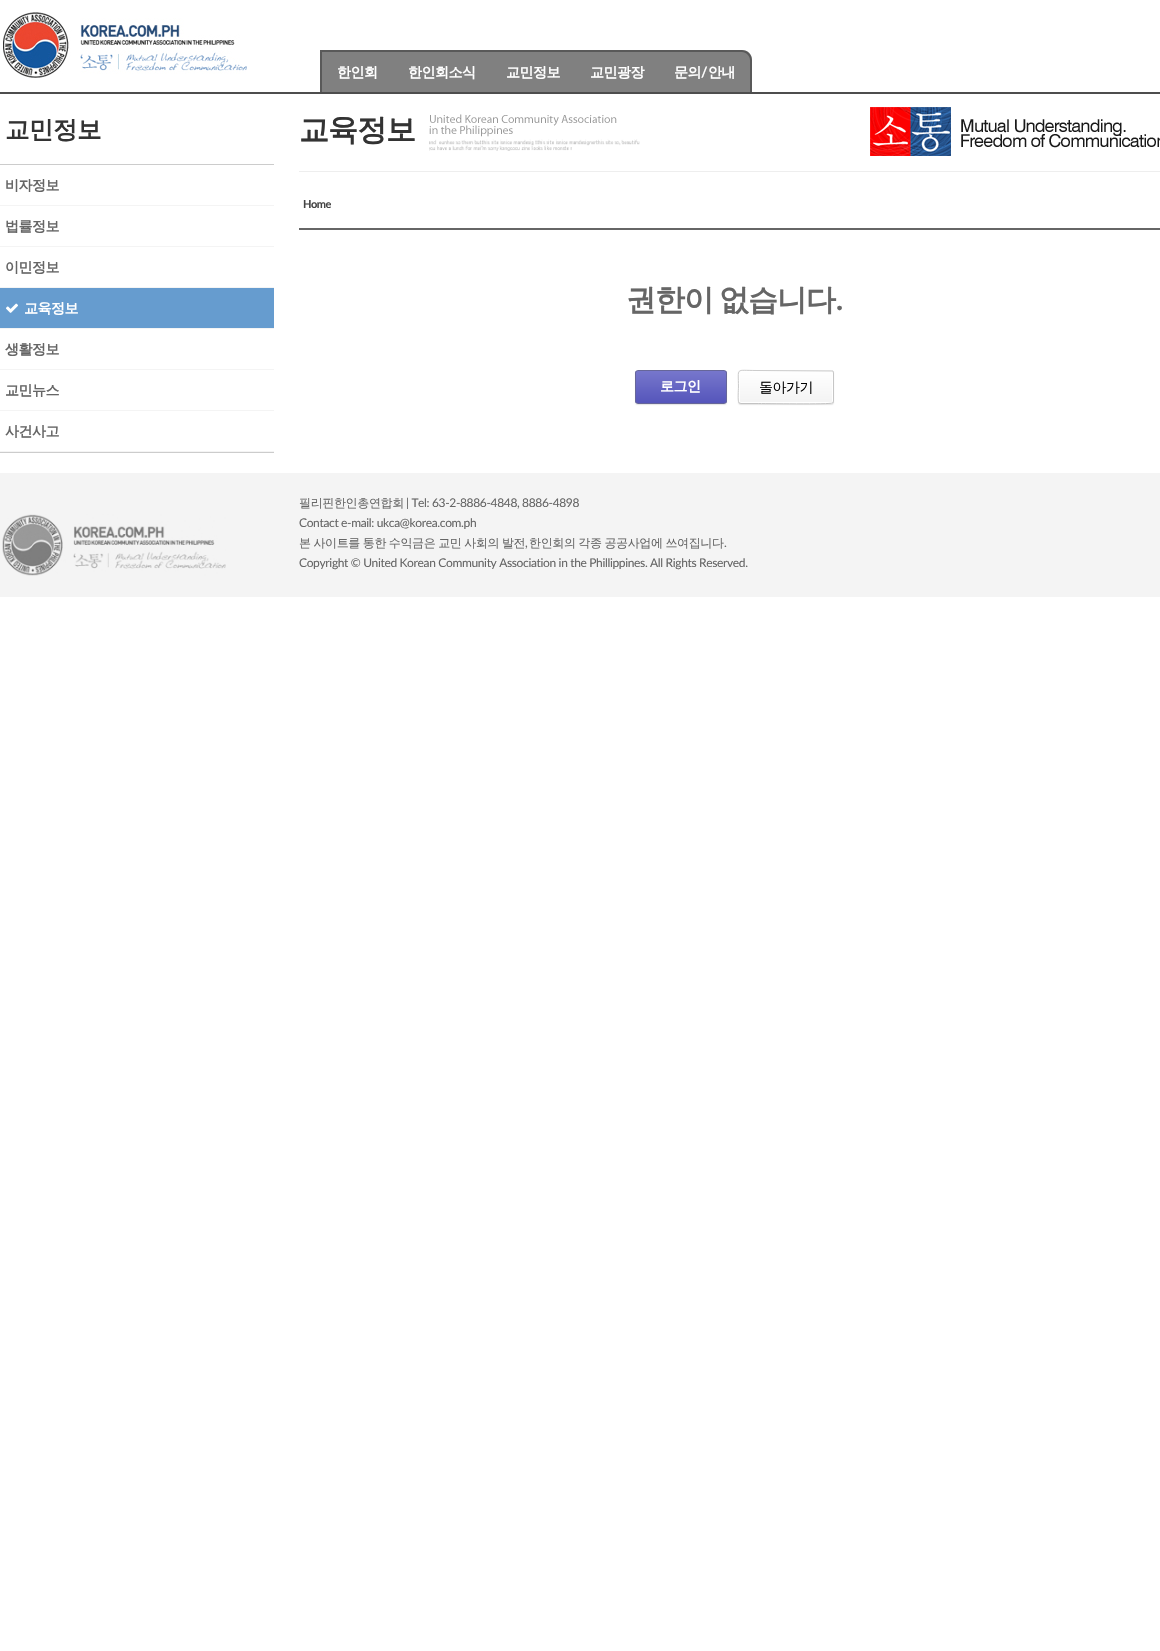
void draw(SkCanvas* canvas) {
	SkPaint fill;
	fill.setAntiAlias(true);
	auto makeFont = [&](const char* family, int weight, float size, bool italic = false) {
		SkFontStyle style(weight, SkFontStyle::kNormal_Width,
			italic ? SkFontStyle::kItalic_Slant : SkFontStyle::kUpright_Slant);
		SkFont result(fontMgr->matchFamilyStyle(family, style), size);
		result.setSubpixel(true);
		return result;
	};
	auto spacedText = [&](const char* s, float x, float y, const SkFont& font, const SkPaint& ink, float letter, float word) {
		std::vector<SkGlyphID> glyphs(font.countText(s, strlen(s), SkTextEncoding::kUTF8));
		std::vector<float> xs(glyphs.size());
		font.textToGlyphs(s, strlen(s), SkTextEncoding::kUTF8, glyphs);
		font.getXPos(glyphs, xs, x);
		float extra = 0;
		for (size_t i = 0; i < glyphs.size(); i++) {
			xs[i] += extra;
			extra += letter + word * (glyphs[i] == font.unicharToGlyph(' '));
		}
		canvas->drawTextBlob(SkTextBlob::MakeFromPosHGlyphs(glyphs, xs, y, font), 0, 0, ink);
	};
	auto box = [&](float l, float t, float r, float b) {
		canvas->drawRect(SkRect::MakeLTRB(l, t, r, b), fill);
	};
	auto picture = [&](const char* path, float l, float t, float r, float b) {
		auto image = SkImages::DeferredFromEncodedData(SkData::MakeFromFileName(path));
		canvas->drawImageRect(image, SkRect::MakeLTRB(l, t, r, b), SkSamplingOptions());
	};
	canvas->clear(0xFFFFFFFF);
	fill.setColor(0xFF4D4D4D);
	box(0, 92, 1160, 94);
	picture("image0.png", 3, 12, 247, 78);
	fill.setColor(0xFF808080);
	canvas->drawPath(SkPathBuilder().moveTo(320, 50).lineTo(742, 50).cubicTo(747.5f, 50, 752, 54.5f, 752, 60).lineTo(752, 92).lineTo(320, 92).close().detach(), fill);
	fill.setColor(0x4D000000);
	canvas->drawPath(SkPathBuilder(SkPathFillType::kEvenOdd).moveTo(320, 50).lineTo(742, 50).cubicTo(748, 50, 752, 54, 752, 60).lineTo(752, 92).lineTo(320, 92).close().moveTo(322, 52).lineTo(742, 52).cubicTo(746, 52, 750, 56, 750, 60).lineTo(750, 92).lineTo(322, 92).close().detach(), fill);
	fill.setColor(0xFFCCCCCC);
	box(0, 164, 274, 165);
	box(0, 452, 274, 453);
	fill.setColor(0xFFF4F4F4);
	box(0, 205, 274, 206);
	box(0, 246, 274, 247);
	box(0, 287, 274, 288);
	fill.setColor(0xFF669CCF);
	box(0, 288, 274, 328);
	fill.setColor(0xFFF4F4F4);
	box(0, 328, 274, 329);
	picture("image1.png", 6, 303, 18, 313);
	box(0, 369, 274, 370);
	box(0, 410, 274, 411);
	box(0, 451, 274, 452);
	picture("image2.png", 429, 114, 640, 151);
	picture("image3.png", 870, 107, 1160, 156);
	fill.setColor(0xFFEEEEEE);
	box(299, 171, 1160, 172);
	fill.setColor(0xFF666666);
	box(299, 228, 1160, 230);
	fill.setColor(0x1A000000);
	fill.setMaskFilter(SkMaskFilter::MakeBlur(kNormal_SkBlurStyle, 0.5f));
	canvas->drawRoundRect(SkRect::MakeLTRB(635, 371, 727, 405), 3, 3, fill);
	fill.setMaskFilter(nullptr);
	canvas->save();
	canvas->clipPath(SkPathBuilder().moveTo(638, 370).lineTo(724, 370).cubicTo(725.5f, 370, 727, 371.5f, 727, 373).lineTo(727, 401).cubicTo(727, 402.5f, 725.5f, 404, 724, 404).lineTo(638, 404).cubicTo(636.5f, 404, 635, 402.5f, 635, 401).lineTo(635, 373).cubicTo(635, 371.5f, 636.5f, 370, 638, 370).close().detach(), true);
	{
		const SkColor colors[] = {0xFF7777CC, 0xFF5555BB};
		const float stops[] = {0, 1};
		const SkPoint ends[] = {{681, 371}, {681, 403}};
		fill.setShader(SkGradientShader::MakeLinear(ends, colors, stops, 2, SkTileMode::kClamp));
		fill.setAlpha(255);
	}
	box(635, 371, 727, 403);
	canvas->restore();
	fill.setStyle(SkPaint::kStroke_Style);
	fill.setStrokeWidth(1);
	fill.setShader(nullptr);
	fill.setColor(0xFF666699);
	canvas->drawRoundRect(SkRect::MakeLTRB(635.5f, 370.5f, 726.5f, 403.5f), 2.5f, 2.5f, fill);
	fill.setStyle(SkPaint::kFill_Style);
	fill.setColor(0x1A000000);
	fill.setMaskFilter(SkMaskFilter::MakeBlur(kNormal_SkBlurStyle, 0.5f));
	canvas->drawRoundRect(SkRect::MakeLTRB(738, 371, 834, 405), 3, 3, fill);
	fill.setMaskFilter(nullptr);
	canvas->save();
	canvas->clipPath(SkPathBuilder().moveTo(741, 370).lineTo(831, 370).cubicTo(832.5f, 370, 834, 371.5f, 834, 373).lineTo(834, 401).cubicTo(834, 402.5f, 832.5f, 404, 831, 404).lineTo(741, 404).cubicTo(739.5f, 404, 738, 402.5f, 738, 401).lineTo(738, 373).cubicTo(738, 371.5f, 739.5f, 370, 741, 370).close().detach(), true);
	{
		const SkColor colors[] = {0xFFFFFFFF, 0xFFF3F3F3};
		const float stops[] = {0, 1};
		const SkPoint ends[] = {{786, 339}, {786, 371}};
		fill.setShader(SkGradientShader::MakeLinear(ends, colors, stops, 2, SkTileMode::kClamp));
		fill.setAlpha(255);
	}
	box(738, 370, 834, 371);
	{
		const SkColor colors[] = {0xFFFFFFFF, 0xFFF3F3F3};
		const float stops[] = {0, 1};
		const SkPoint ends[] = {{786, 371}, {786, 403}};
		fill.setShader(SkGradientShader::MakeLinear(ends, colors, stops, 2, SkTileMode::kClamp));
		fill.setAlpha(255);
	}
	box(738, 371, 834, 403);
	{
		const SkColor colors[] = {0xFFFFFFFF, 0xFFF3F3F3};
		const float stops[] = {0, 1};
		const SkPoint ends[] = {{786, 403}, {786, 435}};
		fill.setShader(SkGradientShader::MakeLinear(ends, colors, stops, 2, SkTileMode::kClamp));
		fill.setAlpha(255);
	}
	box(738, 403, 834, 404);
	canvas->restore();
	fill.setStyle(SkPaint::kStroke_Style);
	fill.setShader(nullptr);
	fill.setColor(0xFFFFFFFF);
	canvas->drawRoundRect(SkRect::MakeLTRB(739.5f, 371.5f, 832.5f, 402.5f), 1.5f, 1.5f, fill);
	fill.setColor(0xFFC6C6C6);
	canvas->drawPath(SkPathBuilder().moveTo(833, 371).cubicTo(833, 371.5f, 833.5f, 372.5f, 833.5f, 373).lineTo(833.5f, 401).cubicTo(833.5f, 401.5f, 833, 402.5f, 833, 403).detach(), fill);
	fill.setColor(0xFFC3C3C3);
	canvas->drawPath(SkPathBuilder().moveTo(833, 403).lineTo(832.5f, 403).cubicTo(830.5f, 404.5f, 764, 403.5f, 756, 403.5f).lineTo(741, 403.5f).lineTo(739, 403).detach(), fill);
	fill.setColor(0xFFCCCCCC);
	canvas->drawPath(SkPathBuilder().moveTo(739, 403).cubicTo(737.5f, 401, 738.5f, 389.5f, 738.5f, 387).cubicTo(738.5f, 367, 735, 370.5f, 756, 370.5f).lineTo(832, 371).lineTo(833, 371).detach(), fill);
	fill.setStyle(SkPaint::kFill_Style);
	fill.setColor(0xFFF4F4F4);
	box(0, 473, 1160, 597);
	picture("image4.png", 2, 514, 226, 576);
	auto font1 = makeFont("WenQuanYi Zen Hei", 700, 14);
	fill.setColor(0xFFFFFFFF);
	spacedText("한인회", 337, 77, font1, fill, -0.5f, 0);
	spacedText("한인회소식", 408, 77, font1, fill, -0.5f, 0);
	spacedText("교민정보", 506, 77, font1, fill, -0.5f, 0);
	spacedText("교민광장", 590, 77, font1, fill, -0.5f, 0);
	spacedText("문의", 674, 77, font1, fill, -0.5f, 0);
	auto font2 = makeFont("Lato", 700, 14);
	spacedText("/", 701, 77, font2, fill, -0.5f, 0);
	spacedText("안내", 708, 77, font1, fill, -0.5f, 0);
	auto font3 = makeFont("WenQuanYi Zen Hei", 700, 24.5f);
	fill.setColor(0xFF333333);
	spacedText("교민정보", 5, 138, font3, fill, -0.5f, 0);
	fill.setColor(0xFF666666);
	spacedText("비자정보", 5, 190, font1, fill, -0.5f, 0);
	spacedText("법률정보", 5, 231, font1, fill, -0.5f, 0);
	spacedText("이민정보", 5, 272, font1, fill, -0.5f, 0);
	fill.setColor(0xFFFFFFFF);
	spacedText("교육정보", 24, 313, font1, fill, -0.5f, 0);
	fill.setColor(0xFF666666);
	spacedText("생활정보", 5, 354, font1, fill, -0.5f, 0);
	spacedText("교민뉴스", 5, 395, font1, fill, -0.5f, 0);
	spacedText("사건사고", 5, 436, font1, fill, -0.5f, 0);
	auto font4 = makeFont("WenQuanYi Zen Hei", 700, 30);
	fill.setColor(0xFF333333);
	spacedText("교육정보", 299, 140, font4, fill, -1, 0);
	auto font5 = makeFont("Lato", 700, 11);
	fill.setColor(0xFF444444);
	spacedText("Home", 303, 208, font5, fill, -0.5f, 0);
	fill.setColor(0xFF666666);
	spacedText("권한이 없습니다", 626, 310, font4, fill, -1, -2);
	auto font6 = makeFont("Lato", 700, 30);
	spacedText(".", 836, 310, font6, fill, -1, 0);
	fill.setColor(0xFFFFFFFF);
	spacedText("로그인", 660, 391, font1, fill, -0.5f, 0);
	auto font7 = makeFont("WenQuanYi Zen Hei", 500, 14);
	fill.setColor(0xFF000000);
	spacedText("돌아가기", 759, 392, font7, fill, -0.5f, 0);
	auto font8 = makeFont("WenQuanYi Zen Hei", 500, 12);
	fill.setColor(0xFF666666);
	spacedText("필리핀한인총연합회", 299, 507, font8, fill, -0.35f, 0);
	auto font9 = makeFont("Lato", 400, 12);
	spacedText("| Tel: 63-2-8886-4848, 8886-4898", 406, 507, font9, fill, -0.35f, 0);
	spacedText("Contact e-mail: ukca@korea.com.ph", 299, 527, font9, fill, -0.35f, 0);
	spacedText("본 사이트를 통한 수익금은 교민 사회의 발전", 299, 547, font8, fill, -0.35f, -0.5f);
	spacedText(",", 525, 547, font9, fill, -0.35f, 0);
	spacedText("한인회의 각종 공공사업에 쓰여집니다", 529, 547, font8, fill, -0.35f, -0.5f);
	spacedText(".", 724, 547, font9, fill, -0.35f, 0);
	spacedText("Copyright © United Korean Community Association in the Phillippines. All Rights Reserved.", 299, 567, font9, fill, -0.35f, 0);
}
